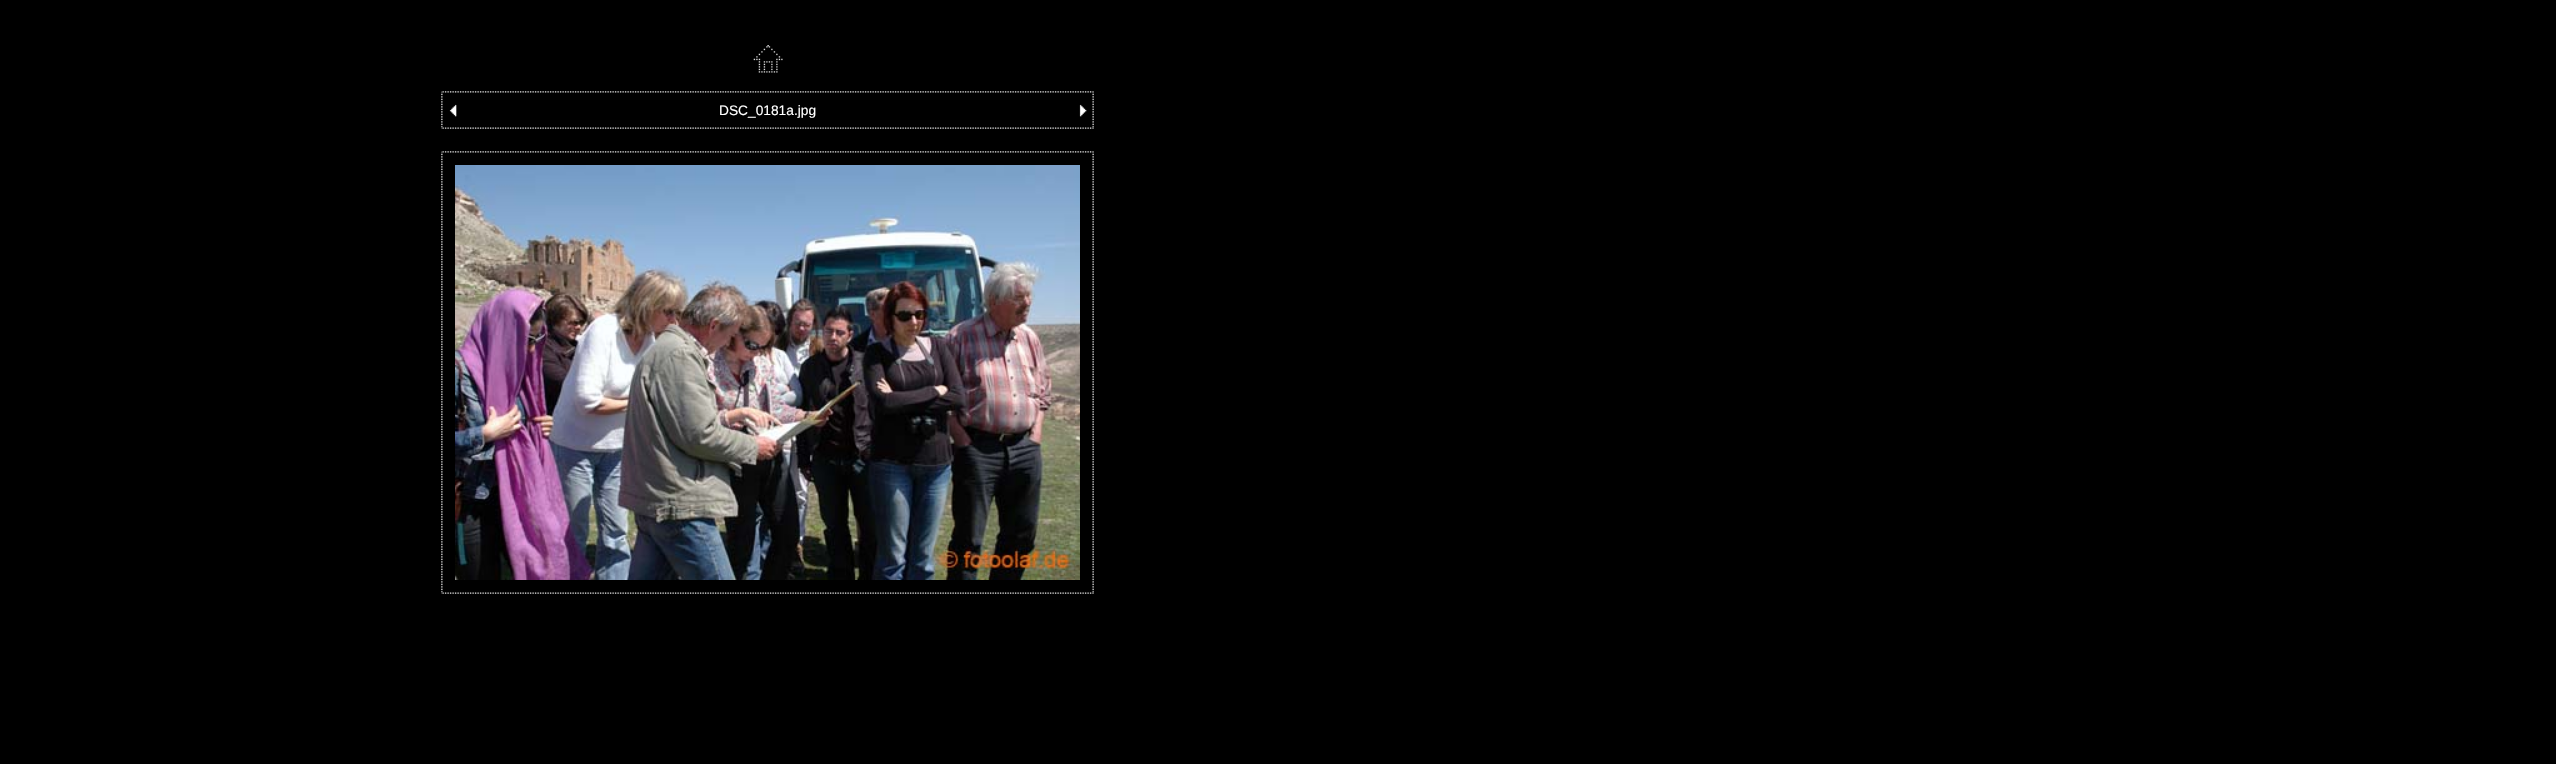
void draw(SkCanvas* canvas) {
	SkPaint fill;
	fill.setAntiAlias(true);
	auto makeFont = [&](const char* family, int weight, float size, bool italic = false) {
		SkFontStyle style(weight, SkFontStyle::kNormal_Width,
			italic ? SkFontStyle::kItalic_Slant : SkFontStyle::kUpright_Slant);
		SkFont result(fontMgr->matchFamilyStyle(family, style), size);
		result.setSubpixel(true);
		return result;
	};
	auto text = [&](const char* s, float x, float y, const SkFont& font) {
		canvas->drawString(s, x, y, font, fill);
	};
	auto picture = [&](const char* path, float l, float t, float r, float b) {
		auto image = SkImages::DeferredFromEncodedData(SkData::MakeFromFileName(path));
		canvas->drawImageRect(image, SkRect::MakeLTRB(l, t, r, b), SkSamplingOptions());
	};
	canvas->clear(0xFF000000);
	picture("image0.png", 753, 45, 783, 73);
	picture("image1.png", 441, 91, 1094, 93);
	picture("image2.png", 441, 92, 443, 128);
	picture("image3.png", 449, 104, 457, 117);
	picture("image4.png", 1079, 104, 1087, 117);
	picture("image5.png", 1092, 92, 1094, 128);
	picture("image6.png", 441, 127, 1094, 129);
	picture("image1.png", 441, 151, 1094, 153);
	picture("image7.png", 441, 152, 443, 593);
	picture("image8.png", 455, 165, 1080, 580);
	picture("image9.png", 1092, 152, 1094, 593);
	picture("image6.png", 441, 592, 1094, 594);
	auto font1 = makeFont("Liberation Sans", 400, 13.75f);
	fill.setColor(0xFFFFFFFF);
	text("DSC_0181a.jpg", 719, 115, font1);
}
